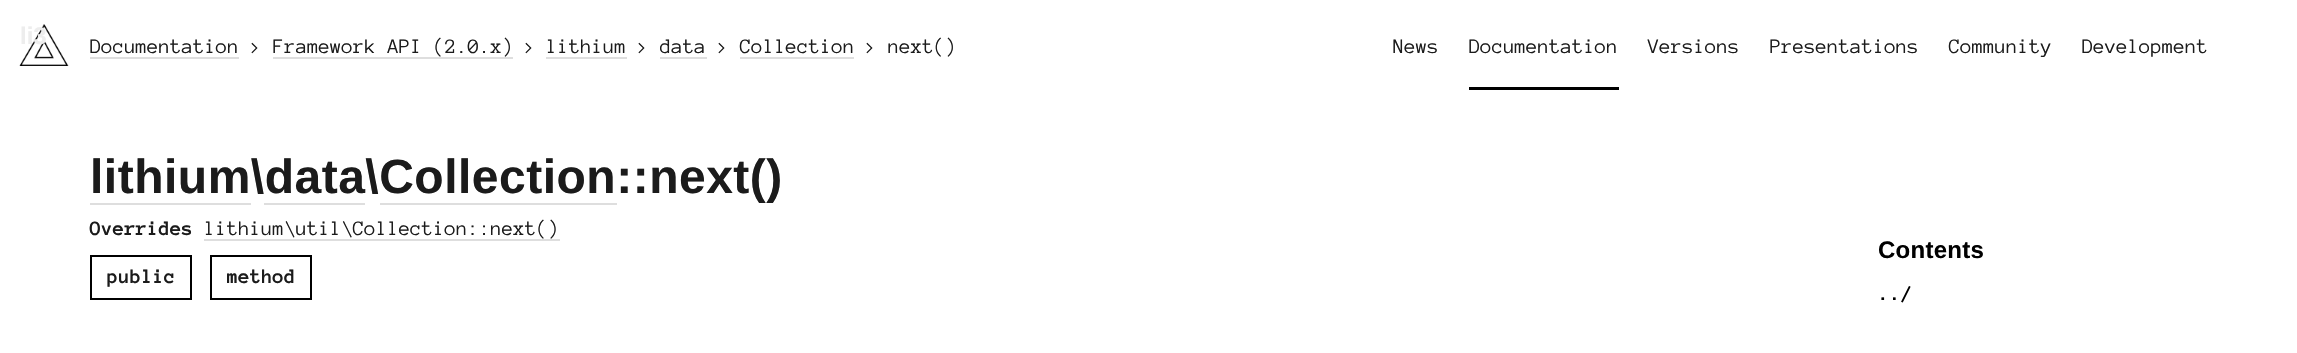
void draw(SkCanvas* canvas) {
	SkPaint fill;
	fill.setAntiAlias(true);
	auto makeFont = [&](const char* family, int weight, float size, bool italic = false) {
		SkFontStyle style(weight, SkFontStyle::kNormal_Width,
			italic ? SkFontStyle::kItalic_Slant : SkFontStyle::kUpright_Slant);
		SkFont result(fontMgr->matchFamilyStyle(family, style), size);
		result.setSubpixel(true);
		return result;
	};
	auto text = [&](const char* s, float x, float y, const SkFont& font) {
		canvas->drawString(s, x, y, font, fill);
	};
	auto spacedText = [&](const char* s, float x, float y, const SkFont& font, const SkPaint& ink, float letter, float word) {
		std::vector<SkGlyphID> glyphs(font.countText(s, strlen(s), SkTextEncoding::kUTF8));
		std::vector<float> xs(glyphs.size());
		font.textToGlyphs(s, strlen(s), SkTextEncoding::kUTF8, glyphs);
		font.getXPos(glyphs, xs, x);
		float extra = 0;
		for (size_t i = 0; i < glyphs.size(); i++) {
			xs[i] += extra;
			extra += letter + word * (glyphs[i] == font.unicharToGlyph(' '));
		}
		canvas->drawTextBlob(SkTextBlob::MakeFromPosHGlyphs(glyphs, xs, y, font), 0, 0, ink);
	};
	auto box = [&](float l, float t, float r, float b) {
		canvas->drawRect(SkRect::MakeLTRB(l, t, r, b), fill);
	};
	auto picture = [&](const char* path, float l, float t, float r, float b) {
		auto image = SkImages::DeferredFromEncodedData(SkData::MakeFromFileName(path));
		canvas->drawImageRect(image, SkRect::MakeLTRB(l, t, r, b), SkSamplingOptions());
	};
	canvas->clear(0xFFFFFFFF);
	picture("image0.png", 19, 24, 69, 66);
	fill.setColor(0xFF000000);
	box(1469, 87, 1619, 90);
	fill.setColor(0xFFDEDEDE);
	box(90, 57, 239, 59);
	box(273, 57, 513, 59);
	box(546, 57, 627, 59);
	box(660, 57, 707, 59);
	box(740, 57, 854, 59);
	box(90, 203, 251, 205);
	box(264, 203, 365, 205);
	box(380, 203, 617, 205);
	box(204, 239, 560, 241);
	fill.setStyle(SkPaint::kStroke_Style);
	fill.setStrokeWidth(2);
	fill.setColor(0xFF000000);
	canvas->drawRect(SkRect::MakeLTRB(91, 256, 191, 299), fill);
	canvas->drawRect(SkRect::MakeLTRB(211, 256, 311, 299), fill);
	auto font1 = makeFont("Liberation Sans", 700, 24);
	fill.setStyle(SkPaint::kFill_Style);
	fill.setColor(0xFFEDEDED);
	text("li3", 20, 44, font1);
	auto font2 = makeFont("Anonymous Pro", 400, 21);
	fill.setColor(0xFF1B1B1B);
	text("News", 1393, 53, font2);
	text("Documentation", 1469, 53, font2);
	text("Versions", 1648, 53, font2);
	text("Presentations", 1770, 53, font2);
	text("Community", 1949, 53, font2);
	text("Development", 2082, 53, font2);
	text("Documentation", 90, 53, font2);
	text(">", 250, 53, font2);
	text("Framework API (2.0.x)", 273, 53, font2);
	text(">", 524, 53, font2);
	text("lithium", 546, 53, font2);
	text(">", 637, 53, font2);
	text("data", 660, 53, font2);
	text(">", 717, 53, font2);
	text("Collection", 740, 53, font2);
	text(">", 865, 53, font2);
	text("next()", 888, 53, font2);
	auto font3 = makeFont("Liberation Sans", 700, 48);
	spacedText("lithium\\data\\Collection::next()", 90, 193, font3, fill, 0.5f, 0);
	auto font4 = makeFont("Anonymous Pro", 700, 21);
	text("Overrides", 90, 235, font4);
	text("lithium\\util\\Collection::next()", 204, 235, font2);
	text("public", 107, 283, font4);
	text("method", 227, 283, font4);
	fill.setColor(0xFF000000);
	spacedText("Contents", 1878, 258, font1, fill, 0.25f, 0);
	text("../", 1878, 300, font4);
}
